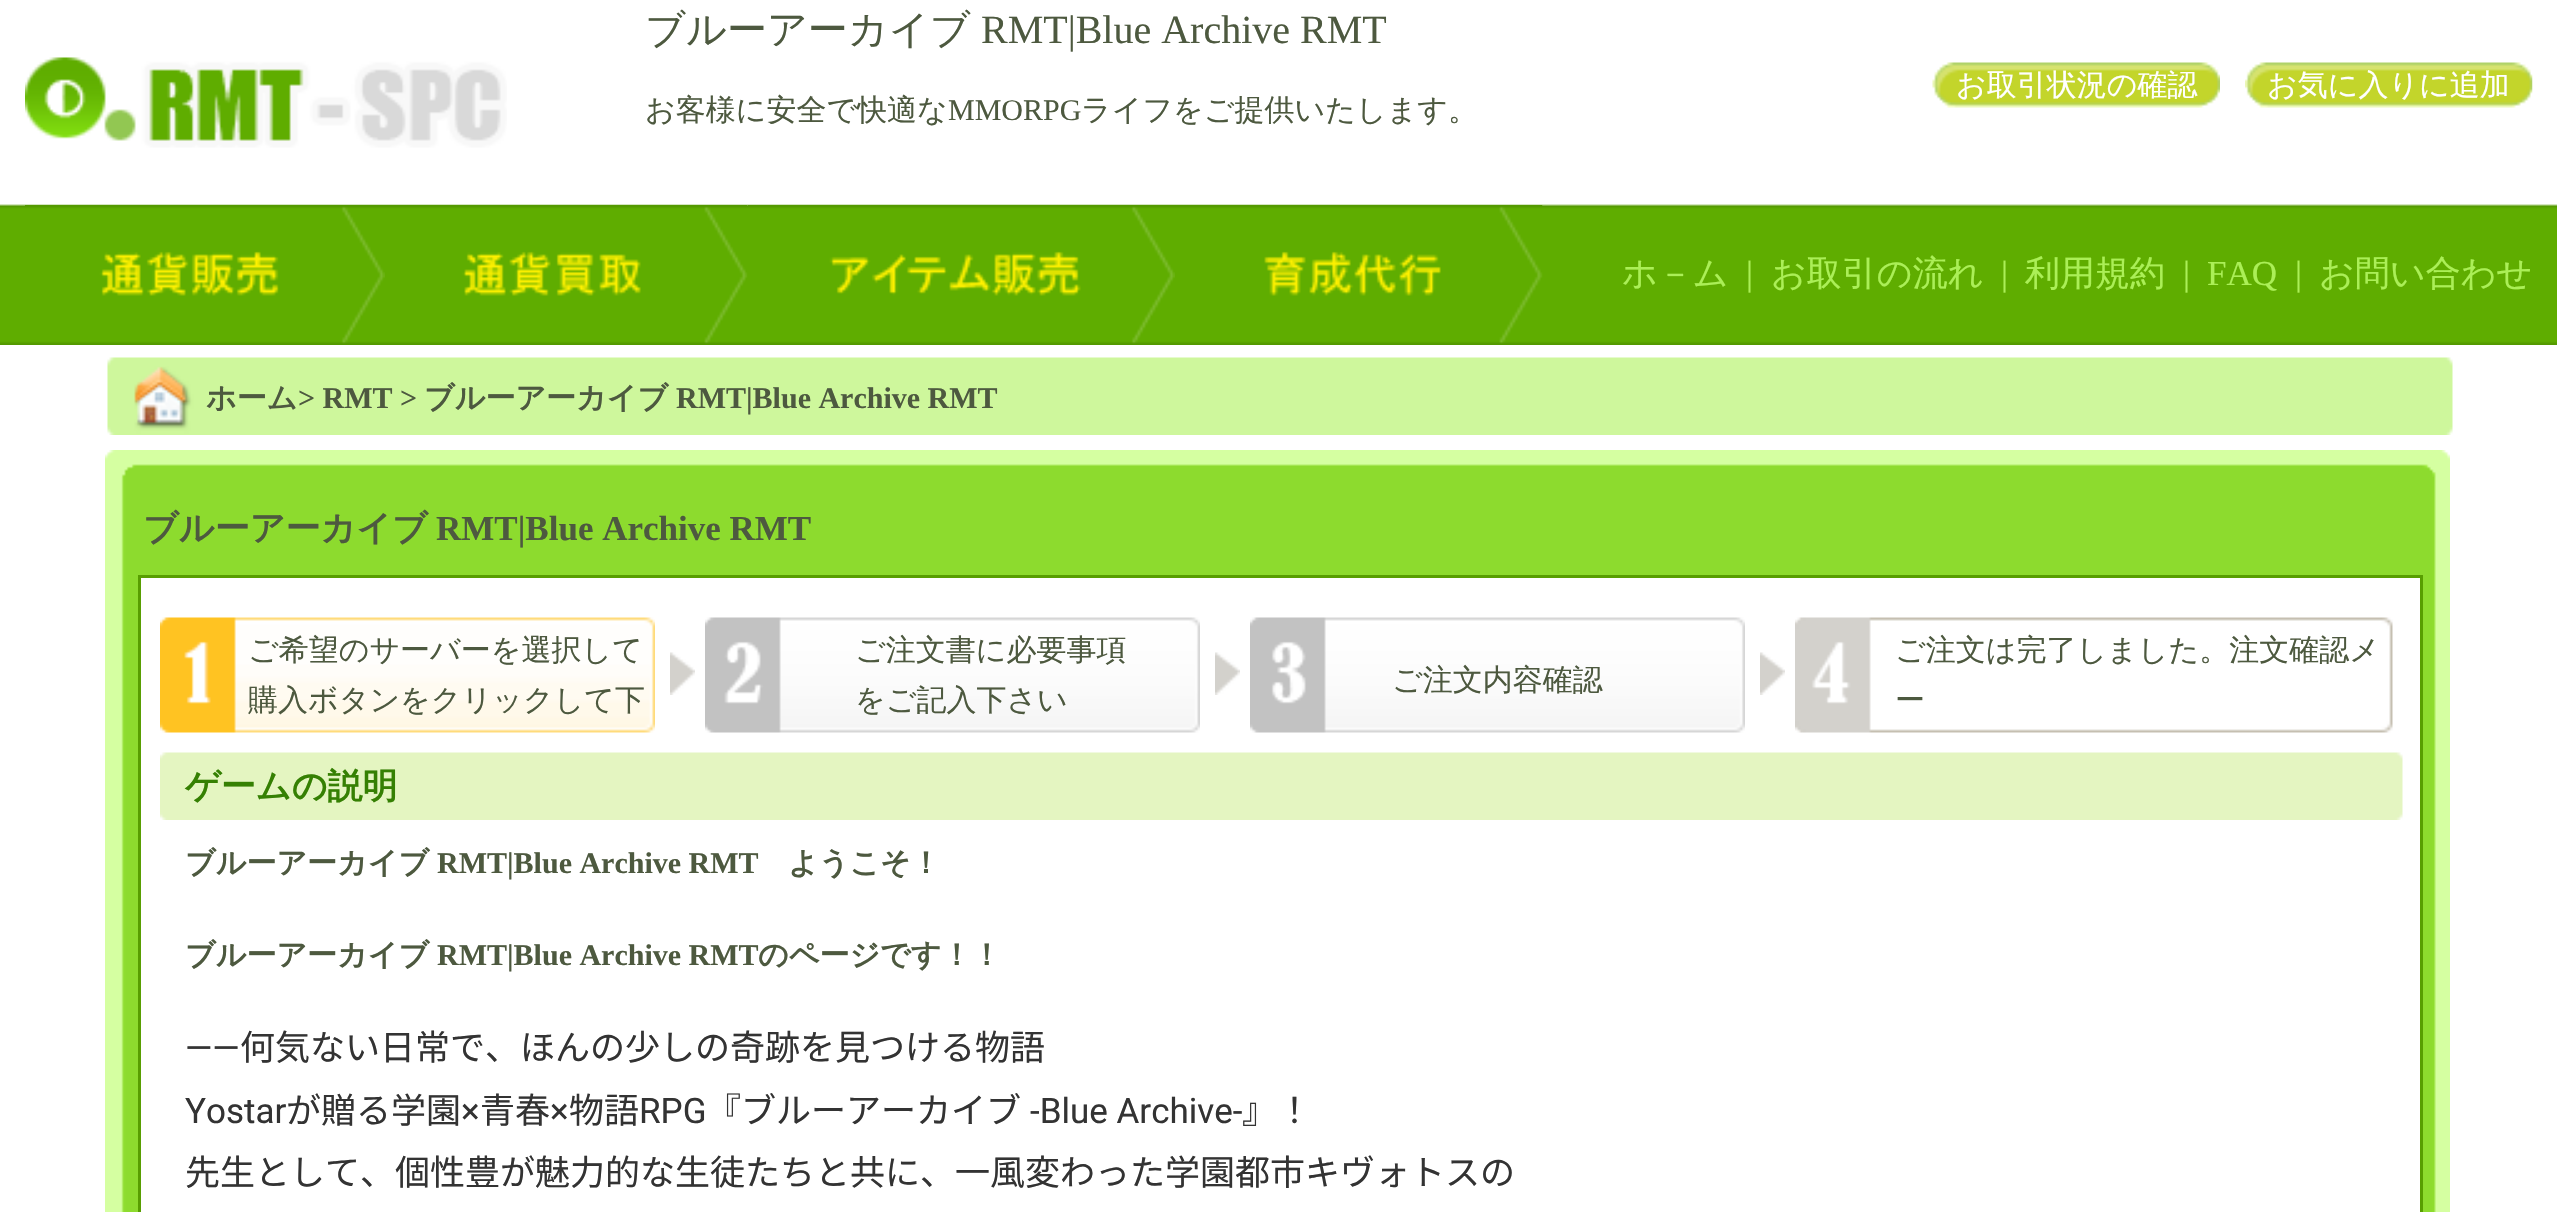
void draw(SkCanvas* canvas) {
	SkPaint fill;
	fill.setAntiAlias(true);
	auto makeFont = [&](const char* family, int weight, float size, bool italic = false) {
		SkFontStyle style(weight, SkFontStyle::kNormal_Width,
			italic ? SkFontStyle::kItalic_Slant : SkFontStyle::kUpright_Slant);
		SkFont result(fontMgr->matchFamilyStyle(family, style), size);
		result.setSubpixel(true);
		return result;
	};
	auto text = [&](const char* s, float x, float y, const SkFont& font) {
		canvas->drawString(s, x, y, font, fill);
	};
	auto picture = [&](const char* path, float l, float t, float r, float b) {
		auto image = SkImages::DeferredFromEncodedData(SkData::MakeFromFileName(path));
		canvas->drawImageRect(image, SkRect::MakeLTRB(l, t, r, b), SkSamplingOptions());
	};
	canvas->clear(0xFFFFFFFF);
	picture("image0.png", 0, 204, 2557, 345);
	picture("image1.png", 25, 57, 507, 148);
	picture("image2.png", 1932, 62, 2220, 108);
	picture("image3.png", 2245, 62, 2533, 108);
	picture("image4.png", 25, 205, 385, 344);
	picture("image5.png", 385, 205, 748, 344);
	picture("image6.png", 747, 205, 1175, 344);
	picture("image7.png", 1175, 205, 1543, 344);
	picture("image8.png", 107, 357, 2453, 435);
	picture("image9.png", 105, 477, 2450, 1212);
	picture("image10.png", 105, 450, 2450, 477);
	fill.setColor(0xFFFFFFFF);
	canvas->drawRect(SkRect::MakeLTRB(139.5f, 576.5f, 2421.5f, 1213.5f), fill);
	fill.setStyle(SkPaint::kStroke_Style);
	fill.setStrokeWidth(3);
	fill.setColor(0xFF589E01);
	canvas->drawRect(SkRect::MakeLTRB(139.5f, 576.5f, 2421.5f, 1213.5f), fill);
	picture("image11.png", 160, 617, 655, 733);
	picture("image12.png", 670, 652, 695, 695);
	picture("image13.png", 705, 617, 1200, 733);
	picture("image14.png", 1215, 652, 1240, 695);
	picture("image15.png", 1250, 617, 1745, 733);
	picture("image16.png", 1760, 652, 1785, 695);
	picture("image17.png", 1795, 617, 2393, 733);
	picture("image18.png", 160, 752, 2403, 820);
	auto font1 = makeFont("WenQuanYi Zen Hei", 500, 40);
	fill.setStyle(SkPaint::kFill_Style);
	fill.setColor(0xFF4D593F);
	text("ブルーアーカイブ", 645, 43, font1);
	auto font2 = makeFont("Liberation Serif", 400, 40);
	text("RMT|Blue Archive RMT", 981, 43, font2);
	auto font3 = makeFont("WenQuanYi Zen Hei", 500, 30);
	text("お客様に安全で快適な", 645, 120, font3);
	auto font4 = makeFont("Liberation Serif", 400, 30);
	text("MMORPG", 948, 120, font4);
	text("ライフをご提供いたします。", 1081, 120, font3);
	fill.setColor(0xFFFFFFFF);
	text("お取引状況の確認", 1956, 95, font3);
	text("お気に入りに追加", 2267, 95, font3);
	auto font5 = makeFont("WenQuanYi Zen Hei", 500, 35);
	fill.setColor(0xFFABEF57);
	text("ホ－ム", 1622, 285, font5);
	auto font6 = makeFont("Liberation Serif", 400, 35);
	text("|", 1746, 285, font6);
	text("お取引の流れ", 1771, 285, font5);
	text("|", 2001, 285, font6);
	text("利用規約", 2025, 285, font5);
	text("|", 2183, 285, font6);
	text("FAQ", 2207, 285, font6);
	text("|", 2295, 285, font6);
	text("お問い合わせ", 2319, 285, font5);
	auto font7 = makeFont("WenQuanYi Zen Hei", 700, 30);
	fill.setColor(0xFF4D593F);
	text("ホーム", 206, 408, font7);
	auto font8 = makeFont("Liberation Serif", 700, 30);
	text("> RMT >", 298, 408, font8);
	text("ブルーアーカイブ", 424, 408, font7);
	text("RMT|Blue Archive RMT", 676, 408, font8);
	auto font9 = makeFont("WenQuanYi Zen Hei", 700, 35);
	text("ブルーアーカイブ", 143, 540, font9);
	auto font10 = makeFont("Liberation Serif", 700, 35);
	text("RMT|Blue Archive RMT", 436, 540, font10);
	text("ご希望のサーバーを選択して", 248, 660, font3);
	text("購入ボタンをクリックして下", 248, 710, font3);
	text("ご注文書に必要事項", 855, 660, font3);
	text("をご記入下さい", 855, 710, font3);
	text("ご注文内容確認", 1392, 690, font3);
	text("ご注文は完了しました。注文確認メ", 1895, 660, font3);
	text("ー", 1895, 710, font3);
	fill.setColor(0xFF358003);
	text("ゲームの説明", 185, 798, font9);
	fill.setColor(0xFF4D593F);
	text("ブルーアーカイブ", 185, 873, font7);
	text("RMT|Blue Archive RMT", 437, 873, font8);
	text("ようこそ！", 788, 873, font7);
	text("ブルーアーカイブ", 185, 965, font7);
	text("RMT|Blue Archive RMT", 437, 965, font8);
	text("のページです！！", 758, 965, font7);
	auto font11 = makeFont("Roboto", 400, 35);
	fill.setColor(0xFF333333);
	text("――", 185, 1060, font11);
	auto font12 = makeFont("Noto Sans JP", 400, 35);
	text("何気ない日常で、ほんの少しの奇跡を見つける物語", 240, 1060, font12);
	text("Yostar", 185, 1123, font11);
	text("が贈る学園", 286, 1123, font12);
	text("×", 461, 1123, font11);
	text("青春", 480, 1123, font12);
	text("×", 550, 1123, font11);
	text("物語", 569, 1123, font12);
	text("RPG", 639, 1123, font11);
	text("『ブルーアーカイブ", 706, 1123, font12);
	text("-Blue Archive-", 1030, 1123, font11);
	text("』！", 1242, 1123, font12);
	text("先生として、個性豊が魅力的な生徒たちと共に、一風変わった学園都市キヴォトスの", 185, 1185, font12);
}
